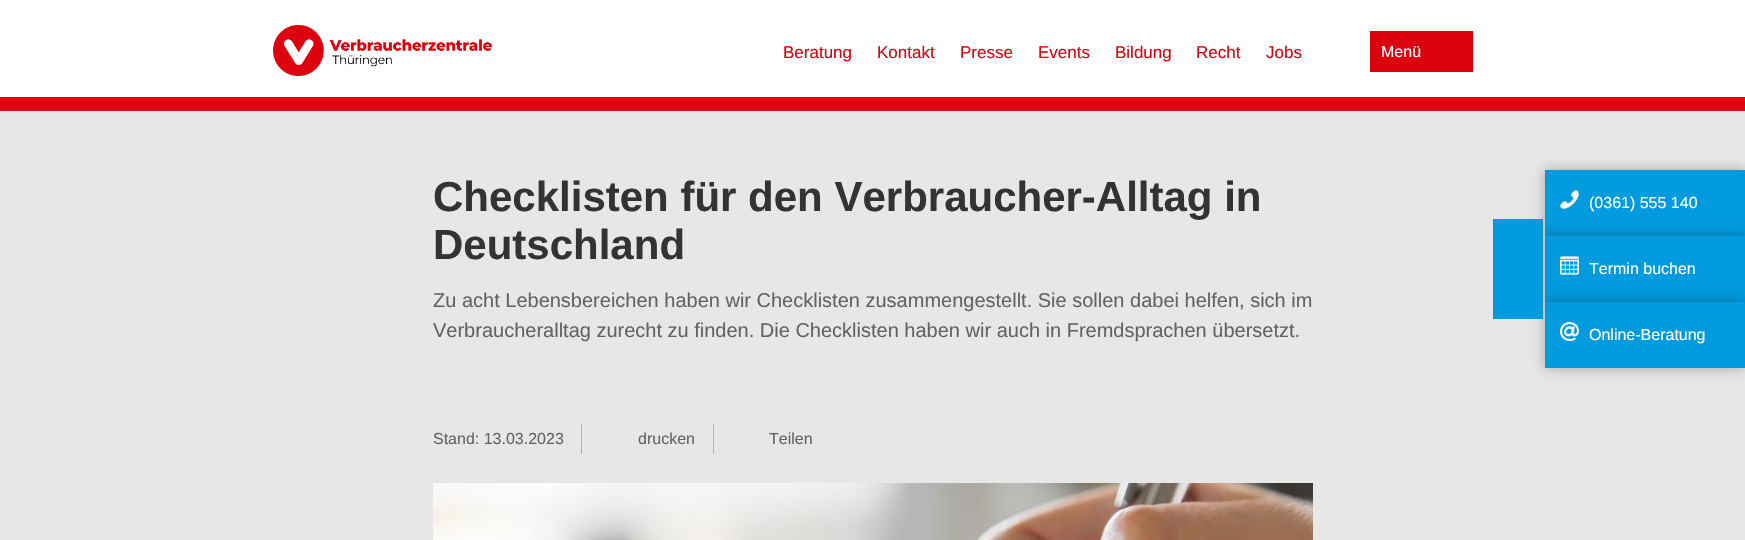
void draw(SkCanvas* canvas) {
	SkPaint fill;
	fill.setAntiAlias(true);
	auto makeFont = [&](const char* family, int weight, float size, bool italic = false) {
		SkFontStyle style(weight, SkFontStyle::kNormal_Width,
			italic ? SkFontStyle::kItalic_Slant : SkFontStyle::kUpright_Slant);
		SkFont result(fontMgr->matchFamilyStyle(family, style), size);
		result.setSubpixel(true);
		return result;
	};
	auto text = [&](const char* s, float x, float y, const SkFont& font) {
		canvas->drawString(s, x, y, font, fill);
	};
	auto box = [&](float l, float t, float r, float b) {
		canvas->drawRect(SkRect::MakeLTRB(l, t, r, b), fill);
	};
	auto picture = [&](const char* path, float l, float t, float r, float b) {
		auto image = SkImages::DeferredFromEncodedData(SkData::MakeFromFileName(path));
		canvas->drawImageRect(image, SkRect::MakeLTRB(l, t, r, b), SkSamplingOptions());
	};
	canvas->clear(0xFFFFFFFF);
	picture("image0.png", 273, 25, 492, 76);
	fill.setColor(0xFFDC020E);
	box(1370, 31, 1473, 72);
	box(0, 97, 1745, 111);
	fill.setColor(0xFFE7E7E7);
	box(0, 111, 1745, 540);
	fill.setColor(0xFFB2B2B2);
	box(581, 424, 582, 454);
	box(713, 424, 714, 454);
	picture("image1.png", 433, 483, 1313, 540);
	fill.setColor(0x4D000000);
	fill.setMaskFilter(SkMaskFilter::MakeBlur(kNormal_SkBlurStyle, 6));
	canvas->drawRect(SkRect::MakeLTRB(1545, 170, 1745, 236), fill);
	fill.setMaskFilter(nullptr);
	fill.setColor(0xFF009BDE);
	box(1545, 170, 1745, 236);
	fill.setColor(0x4D000000);
	fill.setMaskFilter(SkMaskFilter::MakeBlur(kNormal_SkBlurStyle, 6));
	canvas->drawRect(SkRect::MakeLTRB(1545, 236, 1745, 302), fill);
	fill.setMaskFilter(nullptr);
	fill.setColor(0xFF009BDE);
	box(1545, 236, 1745, 302);
	fill.setColor(0x4D000000);
	fill.setMaskFilter(SkMaskFilter::MakeBlur(kNormal_SkBlurStyle, 6));
	canvas->drawRect(SkRect::MakeLTRB(1545, 302, 1745, 368), fill);
	fill.setMaskFilter(nullptr);
	fill.setColor(0xFF009BDE);
	box(1493, 219, 1543, 319);
	picture("image2.png", 1560, 190, 1579, 209);
	picture("image3.png", 1560, 256, 1579, 275);
	box(1545, 302, 1745, 368);
	picture("image4.png", 1560, 322, 1579, 341);
	auto font1 = makeFont("Liberation Sans", 400, 17);
	fill.setColor(0xFFDC020E);
	text("Beratung", 783, 58, font1);
	text("Kontakt", 877, 58, font1);
	text("Presse", 960, 58, font1);
	text("Events", 1038, 58, font1);
	text("Bildung", 1115, 58, font1);
	text("Recht", 1196, 58, font1);
	text("Jobs", 1266, 58, font1);
	auto font2 = makeFont("Liberation Sans", 400, 16);
	fill.setColor(0xFFFFFFFF);
	text("Menü", 1381, 57, font2);
	auto font3 = makeFont("Liberation Sans", 700, 42);
	fill.setColor(0xFF333333);
	text("Checklisten für den Verbraucher-Alltag in", 433, 211, font3);
	text("Deutschland", 433, 259, font3);
	auto font4 = makeFont("Liberation Sans", 400, 20);
	fill.setColor(0xFF636363);
	text("Zu acht Lebensbereichen haben wir Checklisten zusammengestellt. Sie sollen dabei helfen, sich im", 433, 307, font4);
	text("Verbraucheralltag zurecht zu finden. Die Checklisten haben wir auch in Fremdsprachen übersetzt.", 433, 337, font4);
	text("Stand: 13.03.2023", 433, 444, font2);
	text("drucken", 638, 444, font2);
	text("Teilen", 769, 444, font2);
	fill.setColor(0xFFFFFFFF);
	text("(0361) 555 140", 1589, 208, font2);
	text("Termin buchen", 1589, 274, font2);
	text("Online-Beratung", 1589, 340, font2);
}
